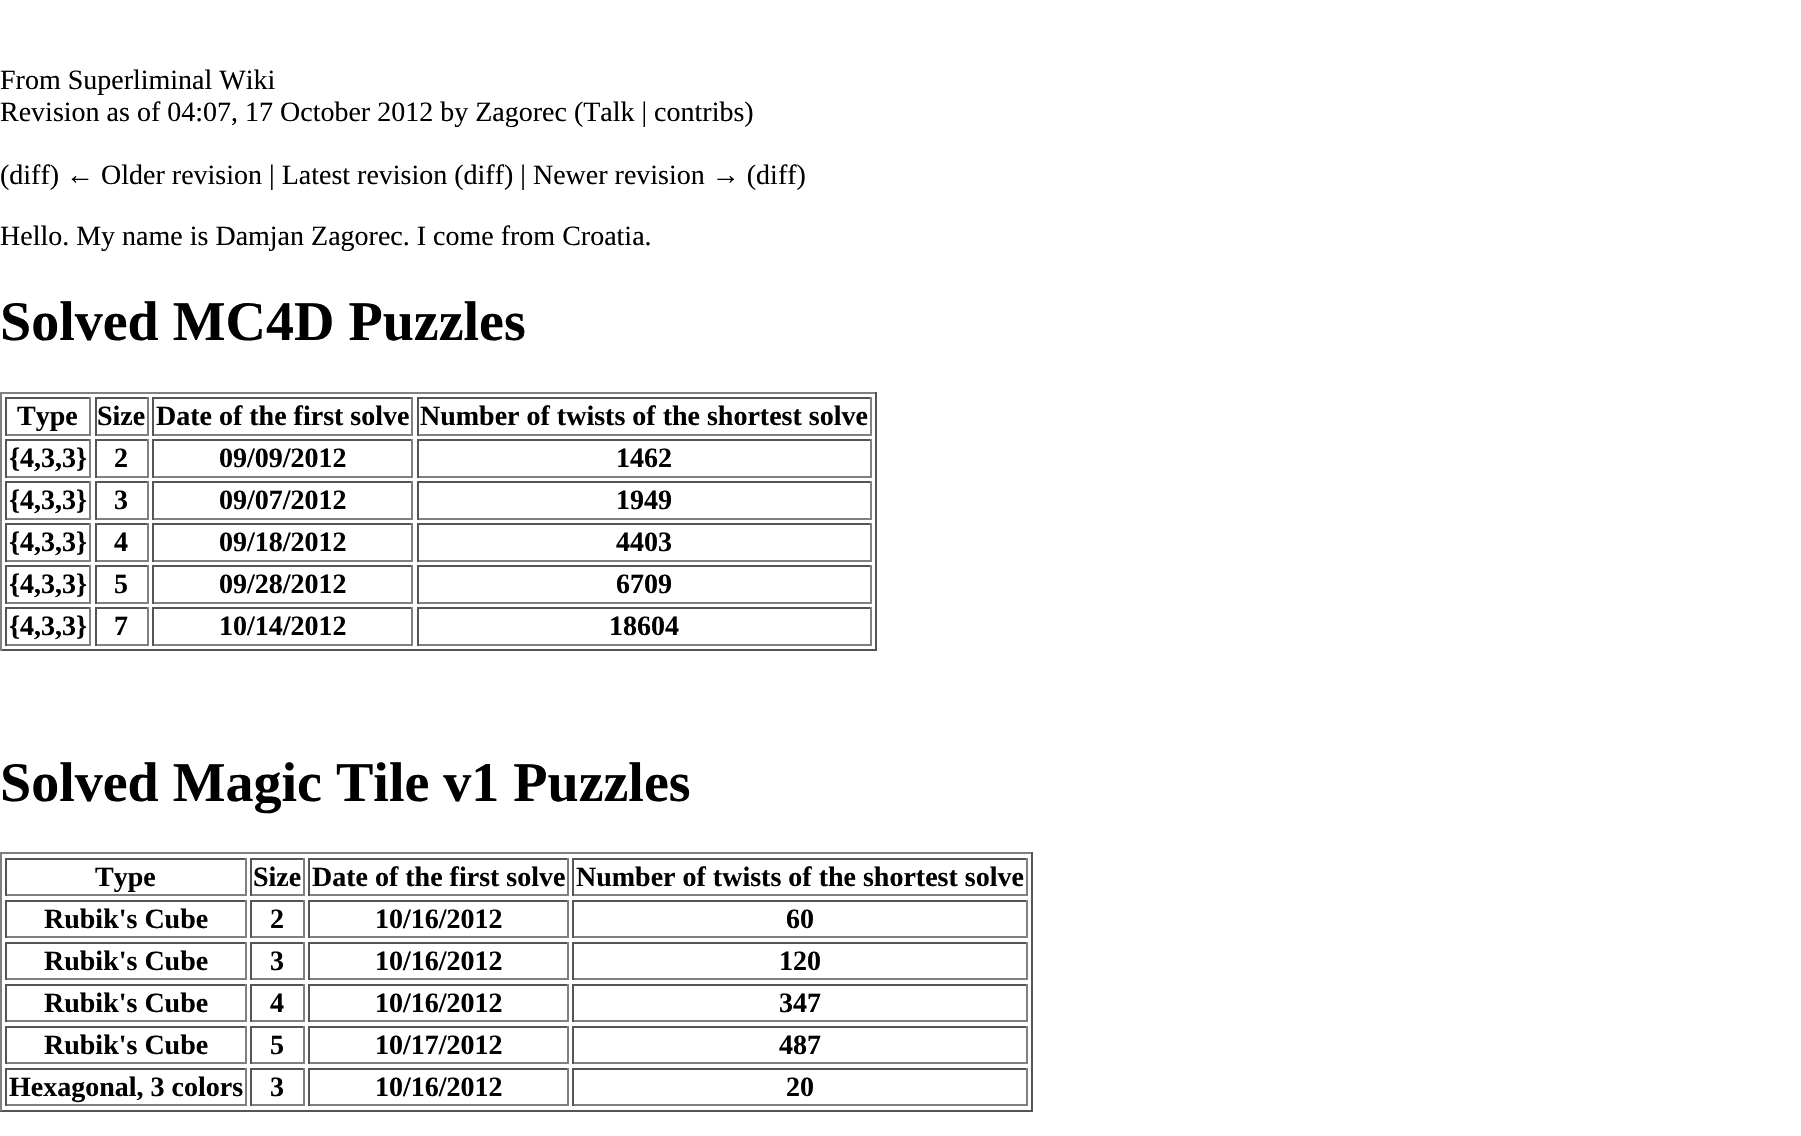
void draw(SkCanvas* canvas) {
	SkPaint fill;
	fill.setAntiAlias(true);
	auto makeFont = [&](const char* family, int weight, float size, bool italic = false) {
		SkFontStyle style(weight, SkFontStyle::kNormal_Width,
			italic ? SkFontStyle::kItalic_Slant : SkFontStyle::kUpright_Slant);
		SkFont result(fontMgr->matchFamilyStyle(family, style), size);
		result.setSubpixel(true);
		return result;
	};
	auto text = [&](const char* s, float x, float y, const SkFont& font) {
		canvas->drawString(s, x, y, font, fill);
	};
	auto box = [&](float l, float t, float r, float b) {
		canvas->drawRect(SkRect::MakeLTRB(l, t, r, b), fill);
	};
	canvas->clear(0xFFFFFFFF);
	fill.setColor(0xFF808080);
	box(0, 392, 877, 394);
	fill.setColor(0xFF555555);
	box(875, 392, 877, 651);
	box(0, 649, 877, 651);
	fill.setColor(0xFF808080);
	box(0, 392, 2, 651);
	fill.setColor(0xFF555555);
	box(5, 397, 91, 399);
	fill.setColor(0xFF808080);
	box(89, 397, 91, 436);
	box(5, 434, 91, 436);
	fill.setColor(0xFF555555);
	box(5, 397, 7, 436);
	box(95, 397, 149, 399);
	fill.setColor(0xFF808080);
	box(147, 397, 149, 436);
	box(95, 434, 149, 436);
	fill.setColor(0xFF555555);
	box(95, 397, 97, 436);
	box(152, 397, 413, 399);
	fill.setColor(0xFF808080);
	box(411, 397, 413, 436);
	box(152, 434, 413, 436);
	fill.setColor(0xFF555555);
	box(152, 397, 154, 436);
	box(417, 397, 872, 399);
	fill.setColor(0xFF808080);
	box(870, 397, 872, 436);
	box(417, 434, 872, 436);
	fill.setColor(0xFF555555);
	box(417, 397, 419, 436);
	box(5, 439, 91, 441);
	fill.setColor(0xFF808080);
	box(89, 439, 91, 478);
	box(5, 476, 91, 478);
	fill.setColor(0xFF555555);
	box(5, 439, 7, 478);
	box(95, 439, 149, 441);
	fill.setColor(0xFF808080);
	box(147, 439, 149, 478);
	box(95, 476, 149, 478);
	fill.setColor(0xFF555555);
	box(95, 439, 97, 478);
	box(152, 439, 413, 441);
	fill.setColor(0xFF808080);
	box(411, 439, 413, 478);
	box(152, 476, 413, 478);
	fill.setColor(0xFF555555);
	box(152, 439, 154, 478);
	box(417, 439, 872, 441);
	fill.setColor(0xFF808080);
	box(870, 439, 872, 478);
	box(417, 476, 872, 478);
	fill.setColor(0xFF555555);
	box(417, 439, 419, 478);
	box(5, 481, 91, 483);
	fill.setColor(0xFF808080);
	box(89, 481, 91, 520);
	box(5, 518, 91, 520);
	fill.setColor(0xFF555555);
	box(5, 481, 7, 520);
	box(95, 481, 149, 483);
	fill.setColor(0xFF808080);
	box(147, 481, 149, 520);
	box(95, 518, 149, 520);
	fill.setColor(0xFF555555);
	box(95, 481, 97, 520);
	box(152, 481, 413, 483);
	fill.setColor(0xFF808080);
	box(411, 481, 413, 520);
	box(152, 518, 413, 520);
	fill.setColor(0xFF555555);
	box(152, 481, 154, 520);
	box(417, 481, 872, 483);
	fill.setColor(0xFF808080);
	box(870, 481, 872, 520);
	box(417, 518, 872, 520);
	fill.setColor(0xFF555555);
	box(417, 481, 419, 520);
	box(5, 523, 91, 525);
	fill.setColor(0xFF808080);
	box(89, 523, 91, 562);
	box(5, 560, 91, 562);
	fill.setColor(0xFF555555);
	box(5, 523, 7, 562);
	box(95, 523, 149, 525);
	fill.setColor(0xFF808080);
	box(147, 523, 149, 562);
	box(95, 560, 149, 562);
	fill.setColor(0xFF555555);
	box(95, 523, 97, 562);
	box(152, 523, 413, 525);
	fill.setColor(0xFF808080);
	box(411, 523, 413, 562);
	box(152, 560, 413, 562);
	fill.setColor(0xFF555555);
	box(152, 523, 154, 562);
	box(417, 523, 872, 525);
	fill.setColor(0xFF808080);
	box(870, 523, 872, 562);
	box(417, 560, 872, 562);
	fill.setColor(0xFF555555);
	box(417, 523, 419, 562);
	box(5, 565, 91, 567);
	fill.setColor(0xFF808080);
	box(89, 565, 91, 604);
	box(5, 602, 91, 604);
	fill.setColor(0xFF555555);
	box(5, 565, 7, 604);
	box(95, 565, 149, 567);
	fill.setColor(0xFF808080);
	box(147, 565, 149, 604);
	box(95, 602, 149, 604);
	fill.setColor(0xFF555555);
	box(95, 565, 97, 604);
	box(152, 565, 413, 567);
	fill.setColor(0xFF808080);
	box(411, 565, 413, 604);
	box(152, 602, 413, 604);
	fill.setColor(0xFF555555);
	box(152, 565, 154, 604);
	box(417, 565, 872, 567);
	fill.setColor(0xFF808080);
	box(870, 565, 872, 604);
	box(417, 602, 872, 604);
	fill.setColor(0xFF555555);
	box(417, 565, 419, 604);
	box(5, 607, 91, 609);
	fill.setColor(0xFF808080);
	box(89, 607, 91, 646);
	box(5, 644, 91, 646);
	fill.setColor(0xFF555555);
	box(5, 607, 7, 646);
	box(95, 607, 149, 609);
	fill.setColor(0xFF808080);
	box(147, 607, 149, 646);
	box(95, 644, 149, 646);
	fill.setColor(0xFF555555);
	box(95, 607, 97, 646);
	box(152, 607, 413, 609);
	fill.setColor(0xFF808080);
	box(411, 607, 413, 646);
	box(152, 644, 413, 646);
	fill.setColor(0xFF555555);
	box(152, 607, 154, 646);
	box(417, 607, 872, 609);
	fill.setColor(0xFF808080);
	box(870, 607, 872, 646);
	box(417, 644, 872, 646);
	fill.setColor(0xFF555555);
	box(417, 607, 419, 646);
	fill.setColor(0xFF808080);
	box(0, 852, 1033, 854);
	fill.setColor(0xFF555555);
	box(1031, 852, 1033, 1111);
	box(0, 1110, 1033, 1112);
	fill.setColor(0xFF808080);
	box(0, 852, 2, 1111);
	fill.setColor(0xFF555555);
	box(5, 858, 247, 860);
	fill.setColor(0xFF808080);
	box(245, 858, 247, 896);
	box(5, 894, 247, 896);
	fill.setColor(0xFF555555);
	box(5, 858, 7, 896);
	box(250, 858, 305, 860);
	fill.setColor(0xFF808080);
	box(303, 858, 305, 896);
	box(250, 894, 305, 896);
	fill.setColor(0xFF555555);
	box(250, 858, 252, 896);
	box(308, 858, 569, 860);
	fill.setColor(0xFF808080);
	box(567, 858, 569, 896);
	box(308, 894, 569, 896);
	fill.setColor(0xFF555555);
	box(308, 858, 310, 896);
	box(572, 858, 1027, 860);
	fill.setColor(0xFF808080);
	box(1026, 858, 1028, 896);
	box(572, 894, 1027, 896);
	fill.setColor(0xFF555555);
	box(572, 858, 574, 896);
	box(5, 900, 247, 902);
	fill.setColor(0xFF808080);
	box(245, 900, 247, 938);
	box(5, 936, 247, 938);
	fill.setColor(0xFF555555);
	box(5, 900, 7, 938);
	box(250, 900, 305, 902);
	fill.setColor(0xFF808080);
	box(303, 900, 305, 938);
	box(250, 936, 305, 938);
	fill.setColor(0xFF555555);
	box(250, 900, 252, 938);
	box(308, 900, 569, 902);
	fill.setColor(0xFF808080);
	box(567, 900, 569, 938);
	box(308, 936, 569, 938);
	fill.setColor(0xFF555555);
	box(308, 900, 310, 938);
	box(572, 900, 1027, 902);
	fill.setColor(0xFF808080);
	box(1026, 900, 1028, 938);
	box(572, 936, 1027, 938);
	fill.setColor(0xFF555555);
	box(572, 900, 574, 938);
	box(5, 942, 247, 944);
	fill.setColor(0xFF808080);
	box(245, 942, 247, 980);
	box(5, 978, 247, 980);
	fill.setColor(0xFF555555);
	box(5, 942, 7, 980);
	box(250, 942, 305, 944);
	fill.setColor(0xFF808080);
	box(303, 942, 305, 980);
	box(250, 978, 305, 980);
	fill.setColor(0xFF555555);
	box(250, 942, 252, 980);
	box(308, 942, 569, 944);
	fill.setColor(0xFF808080);
	box(567, 942, 569, 980);
	box(308, 978, 569, 980);
	fill.setColor(0xFF555555);
	box(308, 942, 310, 980);
	box(572, 942, 1027, 944);
	fill.setColor(0xFF808080);
	box(1026, 942, 1028, 980);
	box(572, 978, 1027, 980);
	fill.setColor(0xFF555555);
	box(572, 942, 574, 980);
	box(5, 984, 247, 986);
	fill.setColor(0xFF808080);
	box(245, 984, 247, 1022);
	box(5, 1020, 247, 1022);
	fill.setColor(0xFF555555);
	box(5, 984, 7, 1022);
	box(250, 984, 305, 986);
	fill.setColor(0xFF808080);
	box(303, 984, 305, 1022);
	box(250, 1020, 305, 1022);
	fill.setColor(0xFF555555);
	box(250, 984, 252, 1022);
	box(308, 984, 569, 986);
	fill.setColor(0xFF808080);
	box(567, 984, 569, 1022);
	box(308, 1020, 569, 1022);
	fill.setColor(0xFF555555);
	box(308, 984, 310, 1022);
	box(572, 984, 1027, 986);
	fill.setColor(0xFF808080);
	box(1026, 984, 1028, 1022);
	box(572, 1020, 1027, 1022);
	fill.setColor(0xFF555555);
	box(572, 984, 574, 1022);
	box(5, 1026, 247, 1028);
	fill.setColor(0xFF808080);
	box(245, 1026, 247, 1064);
	box(5, 1062, 247, 1064);
	fill.setColor(0xFF555555);
	box(5, 1026, 7, 1064);
	box(250, 1026, 305, 1028);
	fill.setColor(0xFF808080);
	box(303, 1026, 305, 1064);
	box(250, 1062, 305, 1064);
	fill.setColor(0xFF555555);
	box(250, 1026, 252, 1064);
	box(308, 1026, 569, 1028);
	fill.setColor(0xFF808080);
	box(567, 1026, 569, 1064);
	box(308, 1062, 569, 1064);
	fill.setColor(0xFF555555);
	box(308, 1026, 310, 1064);
	box(572, 1026, 1027, 1028);
	fill.setColor(0xFF808080);
	box(1026, 1026, 1028, 1064);
	box(572, 1062, 1027, 1064);
	fill.setColor(0xFF555555);
	box(572, 1026, 574, 1064);
	box(5, 1068, 247, 1070);
	fill.setColor(0xFF808080);
	box(245, 1068, 247, 1106);
	box(5, 1104, 247, 1106);
	fill.setColor(0xFF555555);
	box(5, 1068, 7, 1106);
	box(250, 1068, 305, 1070);
	fill.setColor(0xFF808080);
	box(303, 1068, 305, 1106);
	box(250, 1104, 305, 1106);
	fill.setColor(0xFF555555);
	box(250, 1068, 252, 1106);
	box(308, 1068, 569, 1070);
	fill.setColor(0xFF808080);
	box(567, 1068, 569, 1106);
	box(308, 1104, 569, 1106);
	fill.setColor(0xFF555555);
	box(308, 1068, 310, 1106);
	box(572, 1068, 1027, 1070);
	fill.setColor(0xFF808080);
	box(1026, 1068, 1028, 1106);
	box(572, 1104, 1027, 1106);
	fill.setColor(0xFF555555);
	box(572, 1068, 574, 1106);
	auto font1 = makeFont("Liberation Serif", 400, 28);
	fill.setColor(0xFF000000);
	text("From Superliminal Wiki", 0, 89, font1);
	text("Revision as of 04:07, 17 October 2012 by Zagorec (Talk | contribs)", 0, 121, font1);
	text("(diff) ← Older revision | Latest revision (diff) | Newer revision → (diff)", 0, 184, font1);
	text("Hello. My name is Damjan Zagorec. I come from Croatia.", 0, 245, font1);
	auto font2 = makeFont("Liberation Serif", 700, 56);
	text("Solved MC4D Puzzles", 0, 340, font2);
	auto font3 = makeFont("Liberation Serif", 700, 28);
	text("Type", 17, 425, font3);
	text("Size", 97, 425, font3);
	text("Date of the first solve", 156, 425, font3);
	text("Number of twists of the shortest solve", 420, 425, font3);
	text("{4,3,3}", 9, 467, font3);
	text("2", 114, 467, font3);
	text("09/09/2012", 219, 467, font3);
	text("1462", 616, 467, font3);
	text("{4,3,3}", 9, 509, font3);
	text("3", 114, 509, font3);
	text("09/07/2012", 219, 509, font3);
	text("1949", 616, 509, font3);
	text("{4,3,3}", 9, 551, font3);
	text("4", 114, 551, font3);
	text("09/18/2012", 219, 551, font3);
	text("4403", 616, 551, font3);
	text("{4,3,3}", 9, 593, font3);
	text("5", 114, 593, font3);
	text("09/28/2012", 219, 593, font3);
	text("6709", 616, 593, font3);
	text("{4,3,3}", 9, 635, font3);
	text("7", 114, 635, font3);
	text("10/14/2012", 219, 635, font3);
	text("18604", 609, 635, font3);
	text("Solved Magic Tile v1 Puzzles", 0, 801, font2);
	text("Type", 95, 886, font3);
	text("Size", 253, 886, font3);
	text("Date of the first solve", 312, 886, font3);
	text("Number of twists of the shortest solve", 576, 886, font3);
	text("Rubik's Cube", 44, 928, font3);
	text("2", 270, 928, font3);
	text("10/16/2012", 375, 928, font3);
	text("60", 786, 928, font3);
	text("Rubik's Cube", 44, 970, font3);
	text("3", 270, 970, font3);
	text("10/16/2012", 375, 970, font3);
	text("120", 779, 970, font3);
	text("Rubik's Cube", 44, 1012, font3);
	text("4", 270, 1012, font3);
	text("10/16/2012", 375, 1012, font3);
	text("347", 779, 1012, font3);
	text("Rubik's Cube", 44, 1054, font3);
	text("5", 270, 1054, font3);
	text("10/17/2012", 375, 1054, font3);
	text("487", 779, 1054, font3);
	text("Hexagonal, 3 colors", 9, 1096, font3);
	text("3", 270, 1096, font3);
	text("10/16/2012", 375, 1096, font3);
	text("20", 786, 1096, font3);
}
